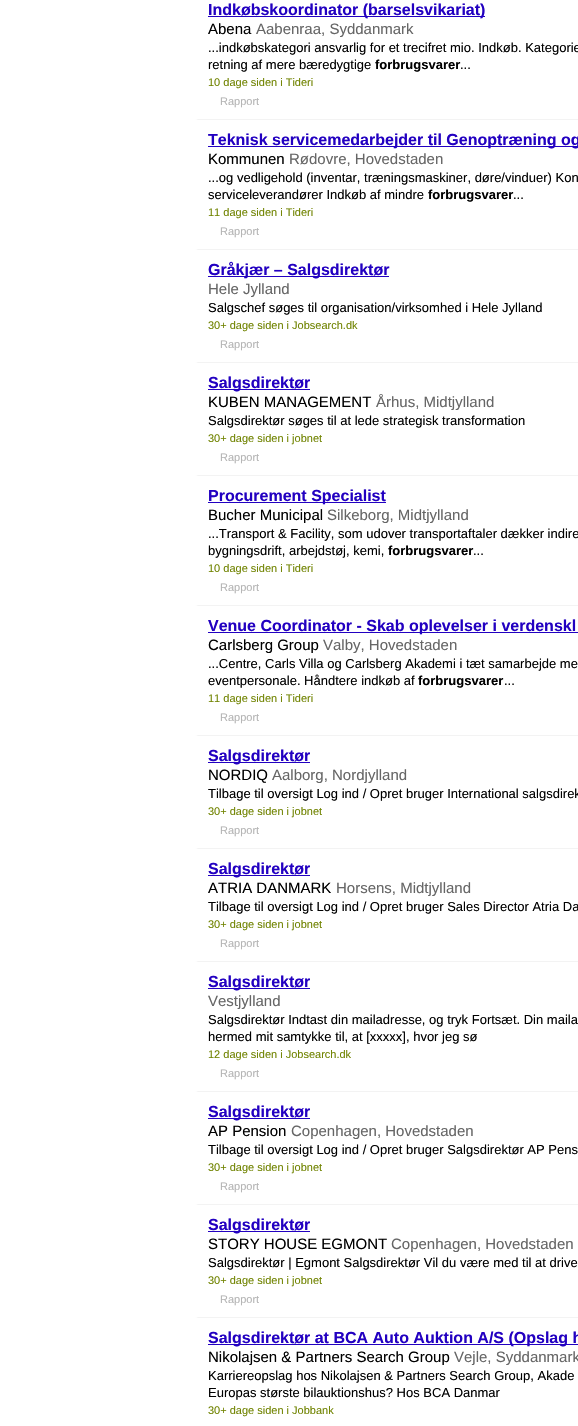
void draw(SkCanvas* canvas) {
	SkPaint fill;
	fill.setAntiAlias(true);
	auto makeFont = [&](const char* family, int weight, float size, bool italic = false) {
		SkFontStyle style(weight, SkFontStyle::kNormal_Width,
			italic ? SkFontStyle::kItalic_Slant : SkFontStyle::kUpright_Slant);
		SkFont result(fontMgr->matchFamilyStyle(family, style), size);
		result.setSubpixel(true);
		return result;
	};
	auto text = [&](const char* s, float x, float y, const SkFont& font) {
		canvas->drawString(s, x, y, font, fill);
	};
	auto box = [&](float l, float t, float r, float b) {
		canvas->drawRect(SkRect::MakeLTRB(l, t, r, b), fill);
	};
	canvas->clear(0xFFFFFFFF);
	fill.setColor(0xFFF3F3F3);
	canvas->drawPath(SkPathBuilder().moveTo(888, 120).lineTo(195, 120).lineTo(198, 119).lineTo(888, 119).close().detach(), fill);
	fill.setColor(0xFFFFFFFF);
	canvas->drawPath(SkPathBuilder().moveTo(195, 120).lineTo(195, -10).lineTo(198, -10).lineTo(198, 119).close().detach(), fill);
	fill.setColor(0xFF2200C1);
	box(208, 16, 485, 17);
	fill.setColor(0xFFF3F3F3);
	canvas->drawPath(SkPathBuilder().moveTo(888, 250).lineTo(195, 250).lineTo(198, 249).lineTo(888, 249).close().detach(), fill);
	fill.setColor(0xFFFFFFFF);
	canvas->drawPath(SkPathBuilder().moveTo(195, 250).lineTo(195, 120).lineTo(198, 120).lineTo(198, 249).close().detach(), fill);
	fill.setColor(0xFF2200C1);
	box(208, 146, 578, 147);
	fill.setColor(0xFFF3F3F3);
	canvas->drawPath(SkPathBuilder().moveTo(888, 363).lineTo(195, 363).lineTo(198, 362).lineTo(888, 362).close().detach(), fill);
	fill.setColor(0xFFFFFFFF);
	canvas->drawPath(SkPathBuilder().moveTo(195, 363).lineTo(195, 250).lineTo(198, 250).lineTo(198, 362).close().detach(), fill);
	fill.setColor(0xFF2200C1);
	box(208, 276, 389, 277);
	fill.setColor(0xFFF3F3F3);
	canvas->drawPath(SkPathBuilder().moveTo(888, 476).lineTo(195, 476).lineTo(198, 475).lineTo(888, 475).close().detach(), fill);
	fill.setColor(0xFFFFFFFF);
	canvas->drawPath(SkPathBuilder().moveTo(195, 476).lineTo(195, 363).lineTo(198, 363).lineTo(198, 475).close().detach(), fill);
	fill.setColor(0xFF2200C1);
	box(208, 389, 310, 390);
	fill.setColor(0xFFF3F3F3);
	canvas->drawPath(SkPathBuilder().moveTo(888, 606).lineTo(195, 606).lineTo(198, 605).lineTo(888, 605).close().detach(), fill);
	fill.setColor(0xFFFFFFFF);
	canvas->drawPath(SkPathBuilder().moveTo(195, 606).lineTo(195, 476).lineTo(198, 476).lineTo(198, 605).close().detach(), fill);
	fill.setColor(0xFF2200C1);
	box(208, 502, 386, 503);
	fill.setColor(0xFFF3F3F3);
	canvas->drawPath(SkPathBuilder().moveTo(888, 736).lineTo(195, 736).lineTo(198, 735).lineTo(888, 735).close().detach(), fill);
	fill.setColor(0xFFFFFFFF);
	canvas->drawPath(SkPathBuilder().moveTo(195, 736).lineTo(195, 606).lineTo(198, 606).lineTo(198, 735).close().detach(), fill);
	fill.setColor(0xFF2200C1);
	box(208, 632, 578, 633);
	fill.setColor(0xFFF3F3F3);
	canvas->drawPath(SkPathBuilder().moveTo(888, 849).lineTo(195, 849).lineTo(198, 848).lineTo(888, 848).close().detach(), fill);
	fill.setColor(0xFFFFFFFF);
	canvas->drawPath(SkPathBuilder().moveTo(195, 849).lineTo(195, 736).lineTo(198, 736).lineTo(198, 848).close().detach(), fill);
	fill.setColor(0xFF2200C1);
	box(208, 762, 310, 763);
	fill.setColor(0xFFF3F3F3);
	canvas->drawPath(SkPathBuilder().moveTo(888, 962).lineTo(195, 962).lineTo(198, 961).lineTo(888, 961).close().detach(), fill);
	fill.setColor(0xFFFFFFFF);
	canvas->drawPath(SkPathBuilder().moveTo(195, 962).lineTo(195, 849).lineTo(198, 849).lineTo(198, 961).close().detach(), fill);
	fill.setColor(0xFF2200C1);
	box(208, 875, 310, 876);
	fill.setColor(0xFFF3F3F3);
	canvas->drawPath(SkPathBuilder().moveTo(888, 1092).lineTo(195, 1092).lineTo(198, 1091).lineTo(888, 1091).close().detach(), fill);
	fill.setColor(0xFFFFFFFF);
	canvas->drawPath(SkPathBuilder().moveTo(195, 1092).lineTo(195, 962).lineTo(198, 962).lineTo(198, 1091).close().detach(), fill);
	fill.setColor(0xFF2200C1);
	box(208, 988, 310, 989);
	fill.setColor(0xFFF3F3F3);
	canvas->drawPath(SkPathBuilder().moveTo(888, 1205).lineTo(195, 1205).lineTo(198, 1204).lineTo(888, 1204).close().detach(), fill);
	fill.setColor(0xFFFFFFFF);
	canvas->drawPath(SkPathBuilder().moveTo(195, 1205).lineTo(195, 1092).lineTo(198, 1092).lineTo(198, 1204).close().detach(), fill);
	fill.setColor(0xFF2200C1);
	box(208, 1118, 310, 1119);
	fill.setColor(0xFFF3F3F3);
	canvas->drawPath(SkPathBuilder().moveTo(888, 1318).lineTo(195, 1318).lineTo(198, 1317).lineTo(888, 1317).close().detach(), fill);
	fill.setColor(0xFFFFFFFF);
	canvas->drawPath(SkPathBuilder().moveTo(195, 1318).lineTo(195, 1205).lineTo(198, 1205).lineTo(198, 1317).close().detach(), fill);
	fill.setColor(0xFF2200C1);
	box(208, 1231, 310, 1232);
	box(208, 1344, 578, 1345);
	auto font1 = makeFont("Liberation Sans", 700, 16);
	text("Indkøbskoordinator (barselsvikariat)", 208, 15, font1);
	auto font2 = makeFont("Liberation Sans", 400, 15);
	fill.setColor(0xFF000000);
	text("Abena", 208, 34, font2);
	fill.setColor(0xFF666666);
	text("Aabenraa, Syddanmark", 256, 34, font2);
	auto font3 = makeFont("Liberation Sans", 400, 13);
	fill.setColor(0xFF000000);
	text("...indkøbskategori ansvarlig for et trecifret mio. Indkøb. Kategorie", 208, 52, font3);
	text("retning af mere bæredygtige", 208, 69, font3);
	auto font4 = makeFont("Liberation Sans", 700, 13);
	text("forbrugsvarer", 375, 69, font4);
	text("...", 460, 69, font3);
	auto font5 = makeFont("Liberation Sans", 400, 11);
	fill.setColor(0xFF708300);
	text("10 dage siden i Tideri", 208, 86, font5);
	fill.setColor(0xFFB4B4B4);
	text("Rapport", 220, 105, font5);
	fill.setColor(0xFF2200C1);
	text("Teknisk servicemedarbejder til Genoptræning og", 208, 145, font1);
	fill.setColor(0xFF000000);
	text("Kommunen", 208, 164, font2);
	fill.setColor(0xFF666666);
	text("Rødovre, Hovedstaden", 289, 164, font2);
	fill.setColor(0xFF000000);
	text("...og vedligehold (inventar, træningsmaskiner, døre/vinduer) Kon", 208, 182, font3);
	text("serviceleverandører Indkøb af mindre", 208, 199, font3);
	text("forbrugsvarer", 428, 199, font4);
	text("...", 513, 199, font3);
	fill.setColor(0xFF708300);
	text("11 dage siden i Tideri", 208, 216, font5);
	fill.setColor(0xFFB4B4B4);
	text("Rapport", 220, 235, font5);
	fill.setColor(0xFF2200C1);
	text("Gråkjær – Salgsdirektør", 208, 275, font1);
	fill.setColor(0xFF666666);
	text("Hele Jylland", 208, 294, font2);
	fill.setColor(0xFF000000);
	text("Salgschef søges til organisation/virksomhed i Hele Jylland", 208, 312, font3);
	fill.setColor(0xFF708300);
	text("30+ dage siden i Jobsearch.dk", 208, 329, font5);
	fill.setColor(0xFFB4B4B4);
	text("Rapport", 220, 348, font5);
	fill.setColor(0xFF2200C1);
	text("Salgsdirektør", 208, 388, font1);
	fill.setColor(0xFF000000);
	text("KUBEN MANAGEMENT", 208, 407, font2);
	fill.setColor(0xFF666666);
	text("Århus, Midtjylland", 376, 407, font2);
	fill.setColor(0xFF000000);
	text("Salgsdirektør søges til at lede strategisk transformation", 208, 425, font3);
	fill.setColor(0xFF708300);
	text("30+ dage siden i jobnet", 208, 442, font5);
	fill.setColor(0xFFB4B4B4);
	text("Rapport", 220, 461, font5);
	fill.setColor(0xFF2200C1);
	text("Procurement Specialist", 208, 501, font1);
	fill.setColor(0xFF000000);
	text("Bucher Municipal", 208, 520, font2);
	fill.setColor(0xFF666666);
	text("Silkeborg, Midtjylland", 327, 520, font2);
	fill.setColor(0xFF000000);
	text("...Transport & Facility, som udover transportaftaler dækker indire", 208, 538, font3);
	text("bygningsdrift, arbejdstøj, kemi,", 208, 555, font3);
	text("forbrugsvarer", 388, 555, font4);
	text("...", 473, 555, font3);
	fill.setColor(0xFF708300);
	text("10 dage siden i Tideri", 208, 572, font5);
	fill.setColor(0xFFB4B4B4);
	text("Rapport", 220, 591, font5);
	fill.setColor(0xFF2200C1);
	text("Venue Coordinator - Skab oplevelser i verdenskl", 208, 631, font1);
	fill.setColor(0xFF000000);
	text("Carlsberg Group", 208, 650, font2);
	fill.setColor(0xFF666666);
	text("Valby, Hovedstaden", 323, 650, font2);
	fill.setColor(0xFF000000);
	text("...Centre, Carls Villa og Carlsberg Akademi i tæt samarbejde me", 208, 668, font3);
	text("eventpersonale. Håndtere indkøb af", 208, 685, font3);
	text("forbrugsvarer", 418, 685, font4);
	text("...", 504, 685, font3);
	fill.setColor(0xFF708300);
	text("11 dage siden i Tideri", 208, 702, font5);
	fill.setColor(0xFFB4B4B4);
	text("Rapport", 220, 721, font5);
	fill.setColor(0xFF2200C1);
	text("Salgsdirektør", 208, 761, font1);
	fill.setColor(0xFF000000);
	text("NORDIQ", 208, 780, font2);
	fill.setColor(0xFF666666);
	text("Aalborg, Nordjylland", 272, 780, font2);
	fill.setColor(0xFF000000);
	text("Tilbage til oversigt Log ind / Opret bruger International salgsdirek", 208, 798, font3);
	fill.setColor(0xFF708300);
	text("30+ dage siden i jobnet", 208, 815, font5);
	fill.setColor(0xFFB4B4B4);
	text("Rapport", 220, 834, font5);
	fill.setColor(0xFF2200C1);
	text("Salgsdirektør", 208, 874, font1);
	fill.setColor(0xFF000000);
	text("ATRIA DANMARK", 208, 893, font2);
	fill.setColor(0xFF666666);
	text("Horsens, Midtjylland", 336, 893, font2);
	fill.setColor(0xFF000000);
	text("Tilbage til oversigt Log ind / Opret bruger Sales Director Atria Da", 208, 911, font3);
	fill.setColor(0xFF708300);
	text("30+ dage siden i jobnet", 208, 928, font5);
	fill.setColor(0xFFB4B4B4);
	text("Rapport", 220, 947, font5);
	fill.setColor(0xFF2200C1);
	text("Salgsdirektør", 208, 987, font1);
	fill.setColor(0xFF666666);
	text("Vestjylland", 208, 1006, font2);
	fill.setColor(0xFF000000);
	text("Salgsdirektør Indtast din mailadresse, og tryk Fortsæt. Din maila", 208, 1024, font3);
	text("hermed mit samtykke til, at [xxxxx], hvor jeg sø", 208, 1041, font3);
	fill.setColor(0xFF708300);
	text("12 dage siden i Jobsearch.dk", 208, 1058, font5);
	fill.setColor(0xFFB4B4B4);
	text("Rapport", 220, 1077, font5);
	fill.setColor(0xFF2200C1);
	text("Salgsdirektør", 208, 1117, font1);
	fill.setColor(0xFF000000);
	text("AP Pension", 208, 1136, font2);
	fill.setColor(0xFF666666);
	text("Copenhagen, Hovedstaden", 291, 1136, font2);
	fill.setColor(0xFF000000);
	text("Tilbage til oversigt Log ind / Opret bruger Salgsdirektør AP Pens", 208, 1154, font3);
	fill.setColor(0xFF708300);
	text("30+ dage siden i jobnet", 208, 1171, font5);
	fill.setColor(0xFFB4B4B4);
	text("Rapport", 220, 1190, font5);
	fill.setColor(0xFF2200C1);
	text("Salgsdirektør", 208, 1230, font1);
	fill.setColor(0xFF000000);
	text("STORY HOUSE EGMONT", 208, 1249, font2);
	fill.setColor(0xFF666666);
	text("Copenhagen, Hovedstaden", 391, 1249, font2);
	fill.setColor(0xFF000000);
	text("Salgsdirektør | Egmont Salgsdirektør Vil du være med til at drive", 208, 1267, font3);
	fill.setColor(0xFF708300);
	text("30+ dage siden i jobnet", 208, 1284, font5);
	fill.setColor(0xFFB4B4B4);
	text("Rapport", 220, 1303, font5);
	fill.setColor(0xFF2200C1);
	text("Salgsdirektør at BCA Auto Auktion A/S (Opslag h", 208, 1343, font1);
	fill.setColor(0xFF000000);
	text("Nikolajsen & Partners Search Group", 208, 1362, font2);
	fill.setColor(0xFF666666);
	text("Vejle, Syddanmark", 454, 1362, font2);
	fill.setColor(0xFF000000);
	text("Karriereopslag hos Nikolajsen & Partners Search Group, Akade", 208, 1380, font3);
	text("Europas største bilauktionshus? Hos BCA Danmar", 208, 1397, font3);
	fill.setColor(0xFF708300);
	text("30+ dage siden i Jobbank", 208, 1414, font5);
}
